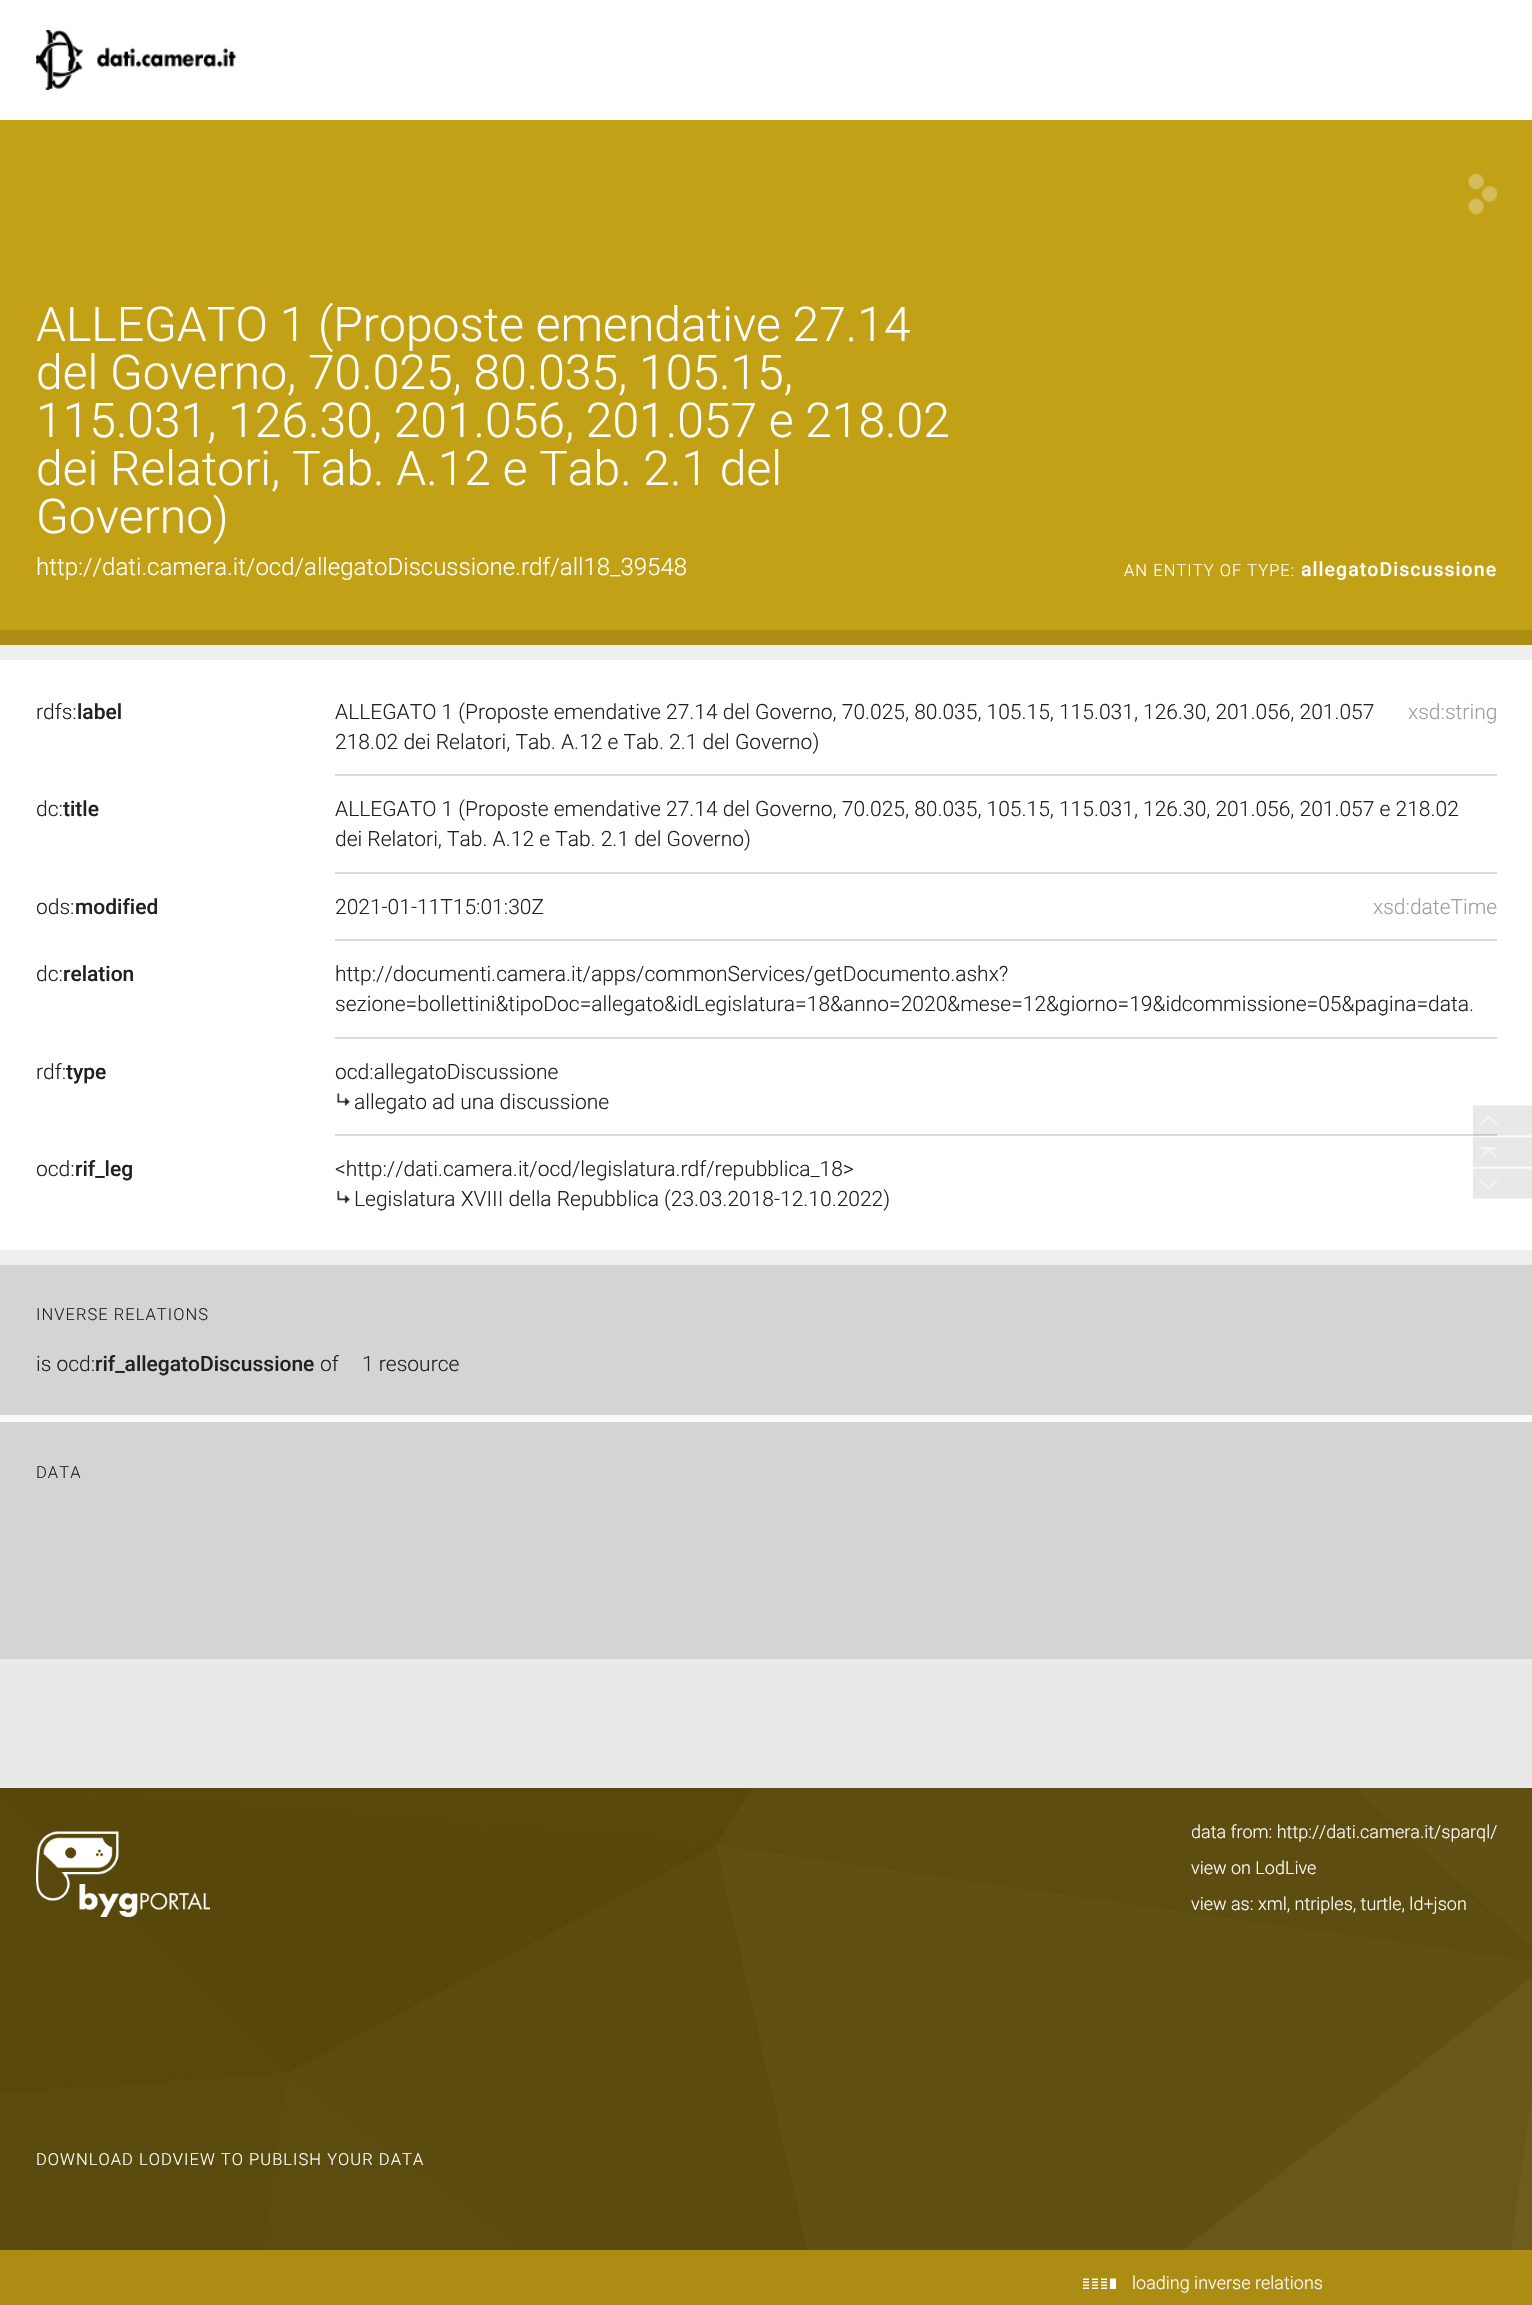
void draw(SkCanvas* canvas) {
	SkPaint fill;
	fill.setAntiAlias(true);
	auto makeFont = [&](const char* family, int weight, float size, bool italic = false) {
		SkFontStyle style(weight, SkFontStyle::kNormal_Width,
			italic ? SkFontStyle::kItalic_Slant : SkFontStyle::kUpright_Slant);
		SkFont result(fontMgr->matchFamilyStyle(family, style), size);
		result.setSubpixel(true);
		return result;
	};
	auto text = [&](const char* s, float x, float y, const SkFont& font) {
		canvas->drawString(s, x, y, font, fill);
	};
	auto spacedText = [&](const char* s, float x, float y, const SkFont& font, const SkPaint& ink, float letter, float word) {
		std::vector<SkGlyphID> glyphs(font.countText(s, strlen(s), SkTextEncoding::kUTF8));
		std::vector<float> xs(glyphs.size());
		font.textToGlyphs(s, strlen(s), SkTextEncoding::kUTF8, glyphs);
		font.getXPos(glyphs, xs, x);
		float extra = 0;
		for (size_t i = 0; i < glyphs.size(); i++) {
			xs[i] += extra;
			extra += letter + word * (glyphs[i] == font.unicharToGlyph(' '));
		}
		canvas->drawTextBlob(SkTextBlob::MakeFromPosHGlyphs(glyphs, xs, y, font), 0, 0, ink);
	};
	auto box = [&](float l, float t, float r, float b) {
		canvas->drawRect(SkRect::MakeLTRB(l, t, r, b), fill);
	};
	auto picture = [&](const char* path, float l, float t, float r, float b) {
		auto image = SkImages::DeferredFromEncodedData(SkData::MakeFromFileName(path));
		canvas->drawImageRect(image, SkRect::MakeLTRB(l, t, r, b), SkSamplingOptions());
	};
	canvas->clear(0xFFAC8C13);
	fill.setColor(0xFFFFFFFF);
	box(0, 0, 1532, 120);
	picture("image0.png", 36, 30, 236, 90);
	fill.setColor(0xFFC3A116);
	box(0, 120, 1532, 630);
	picture("image1.png", 1468, 174, 1497, 215);
	fill.setColor(0xFFEEEEEE);
	box(0, 645, 1532, 660);
	fill.setColor(0xFFFFFFFF);
	box(0, 660, 1532, 1250);
	fill.setColor(0xFFDBDBDB);
	box(335, 774, 1497, 776);
	box(335, 872, 1497, 874);
	box(335, 939, 1497, 941);
	box(335, 1037, 1497, 1039);
	box(335, 1134, 1497, 1136);
	picture("image2.png", 337, 1093, 350, 1106);
	picture("image3.png", 337, 1191, 350, 1204);
	fill.setColor(0xFFEEEEEE);
	box(0, 1250, 1532, 1265);
	fill.setColor(0xFFD4D4D4);
	box(0, 1265, 1532, 1415);
	fill.setColor(0xFFFAFAFA);
	box(0, 1415, 1532, 1422);
	fill.setColor(0xFFD4D4D4);
	box(0, 1422, 1532, 1659);
	fill.setColor(0xFFE9E9E9);
	box(0, 1659, 1532, 1788);
	picture("image4.png", 1473, 1105, 1532, 1136);
	picture("image5.png", 1473, 1136, 1532, 1168);
	picture("image6.png", 1473, 1168, 1532, 1199);
	picture("image7.png", 0, 1788, 1532, 2250);
	picture("image8.png", 36, 1831, 210, 1917);
	picture("image9.png", 1083, 2278, 1116, 2289);
	auto font1 = makeFont("Roboto", 300, 48);
	fill.setColor(0xFFFFFFFF);
	text("ALLEGATO 1 (Proposte emendative 27.14", 36, 341, font1);
	text("del Governo, 70.025, 80.035, 105.15,", 36, 389, font1);
	text("115.031, 126.30, 201.056, 201.057 e 218.02", 36, 437, font1);
	text("dei Relatori, Tab. A.12 e Tab. 2.1 del", 36, 485, font1);
	text("Governo)", 36, 533, font1);
	auto font2 = makeFont("Roboto", 300, 24);
	text("http://dati.camera.it/ocd/allegatoDiscussione.rdf/all18_39548", 36, 575, font2);
	auto font3 = makeFont("Roboto", 300, 16.5f);
	spacedText("AN ENTITY OF TYPE:", 1124, 576, font3, fill, 1.05f, 0);
	auto font4 = makeFont("Roboto", 500, 19.5f);
	spacedText("allegatoDiscussione", 1301, 576, font4, fill, 1.05f, 0);
	auto font5 = makeFont("Roboto", 300, 21);
	fill.setColor(0xFF212121);
	text("rdfs:", 36, 719, font5);
	auto font6 = makeFont("Roboto", 500, 21);
	text("label", 77, 719, font6);
	text("ALLEGATO 1 (Proposte emendative 27.14 del Governo, 70.025, 80.035, 105.15, 115.031, 126.30, 201.056, 201.057", 335, 719, font5);
	fill.setColor(0xFF9E9E9E);
	text("xsd:string", 1408, 719, font5);
	fill.setColor(0xFF212121);
	text("218.02 dei Relatori, Tab. A.12 e Tab. 2.1 del Governo)", 335, 749, font5);
	text("dc:", 36, 816, font5);
	text("title", 63, 816, font6);
	text("ALLEGATO 1 (Proposte emendative 27.14 del Governo, 70.025, 80.035, 105.15, 115.031, 126.30, 201.056, 201.057 e 218.02", 335, 816, font5);
	text("dei Relatori, Tab. A.12 e Tab. 2.1 del Governo)", 335, 846, font5);
	text("ods:", 36, 914, font5);
	text("modified", 75, 914, font6);
	text("2021-01-11T15:01:30Z", 335, 914, font5);
	fill.setColor(0xFF9E9E9E);
	text("xsd:dateTime", 1373, 914, font5);
	fill.setColor(0xFF212121);
	text("dc:", 36, 981, font5);
	text("relation", 63, 981, font6);
	text("http://documenti.camera.it/apps/commonServices/getDocumento.ashx?", 335, 981, font5);
	text("sezione=bollettini&tipoDoc=allegato&idLegislatura=18&anno=2020&mese=12&giorno=19&idcommissione=05&pagina=data.", 335, 1011, font5);
	text("rdf:", 36, 1079, font5);
	text("type", 66, 1079, font6);
	text("ocd:allegatoDiscussione", 335, 1079, font5);
	text("allegato ad una discussione", 354, 1109, font5);
	text("ocd:", 36, 1176, font5);
	text("rif_leg", 75, 1176, font6);
	text("<http://dati.camera.it/ocd/legislatura.rdf/repubblica_18>", 335, 1176, font5);
	text("Legislatura XVIII della Repubblica (23.03.2018-12.10.2022)", 354, 1206, font5);
	spacedText("INVERSE RELATIONS", 36, 1320, font3, fill, 1.05f, 0);
	text("is ocd:", 36, 1371, font5);
	text("rif_allegatoDiscussione", 95, 1371, font6);
	text("of", 320, 1371, font5);
	text("1 resource", 362, 1371, font5);
	spacedText("DATA", 36, 1478, font3, fill, 1.05f, 0);
	auto font7 = makeFont("Roboto", 300, 18);
	fill.setColor(0xFFFFFFFF);
	text("data from: http://dati.camera.it/sparql/", 1191, 1838, font7);
	text("view on LodLive", 1191, 1874, font7);
	text("view as: xml, ntriples, turtle, ld+json", 1191, 1910, font7);
	spacedText("DOWNLOAD LODVIEW TO PUBLISH YOUR DATA", 36, 2165, font3, fill, 1.05f, 0);
	text("loading inverse relations", 1132, 2289, font7);
}
